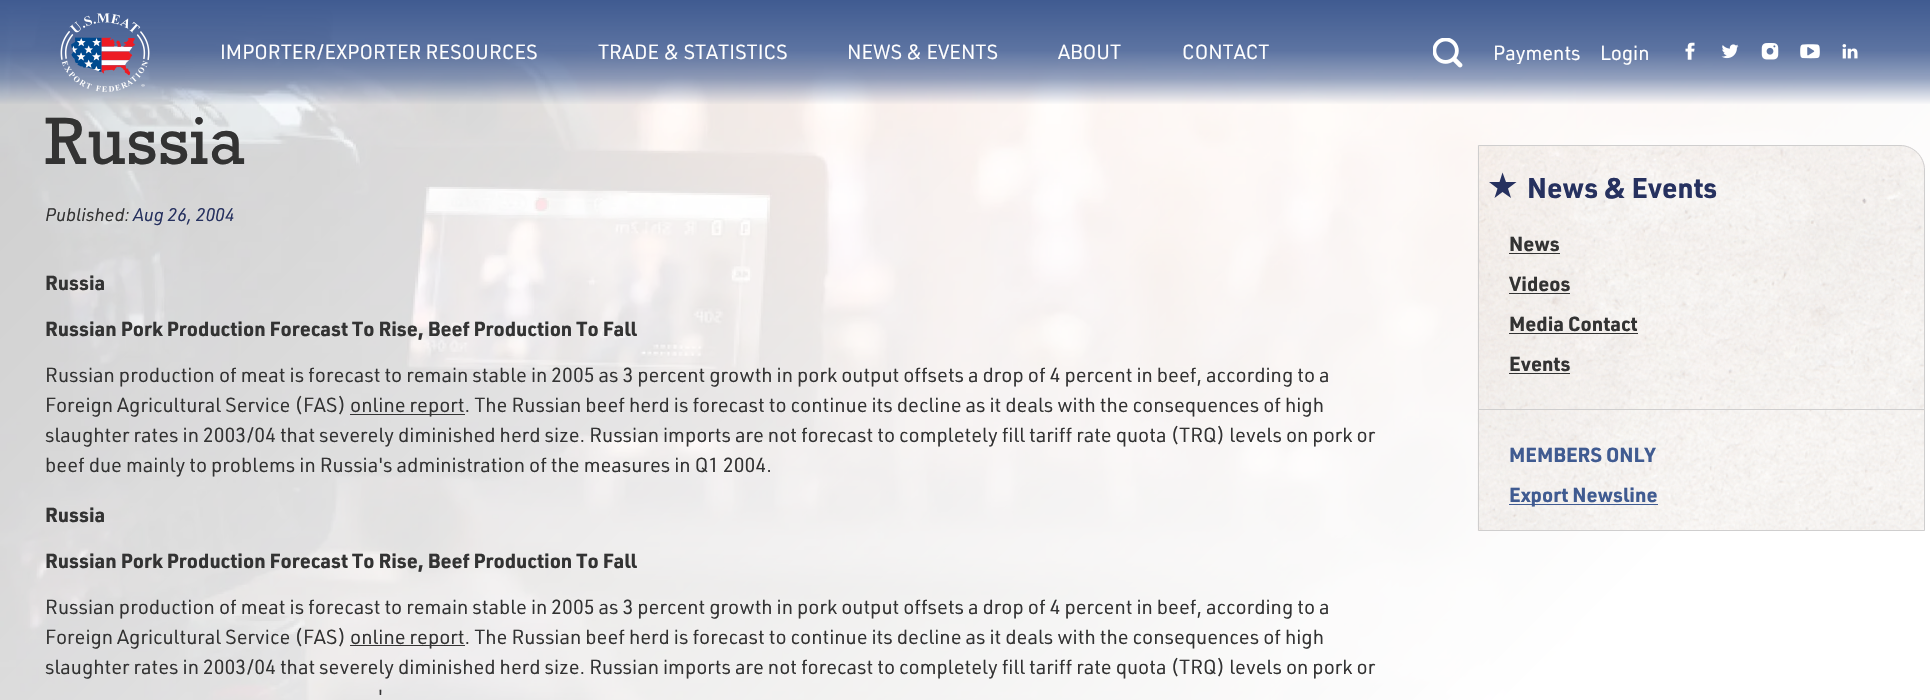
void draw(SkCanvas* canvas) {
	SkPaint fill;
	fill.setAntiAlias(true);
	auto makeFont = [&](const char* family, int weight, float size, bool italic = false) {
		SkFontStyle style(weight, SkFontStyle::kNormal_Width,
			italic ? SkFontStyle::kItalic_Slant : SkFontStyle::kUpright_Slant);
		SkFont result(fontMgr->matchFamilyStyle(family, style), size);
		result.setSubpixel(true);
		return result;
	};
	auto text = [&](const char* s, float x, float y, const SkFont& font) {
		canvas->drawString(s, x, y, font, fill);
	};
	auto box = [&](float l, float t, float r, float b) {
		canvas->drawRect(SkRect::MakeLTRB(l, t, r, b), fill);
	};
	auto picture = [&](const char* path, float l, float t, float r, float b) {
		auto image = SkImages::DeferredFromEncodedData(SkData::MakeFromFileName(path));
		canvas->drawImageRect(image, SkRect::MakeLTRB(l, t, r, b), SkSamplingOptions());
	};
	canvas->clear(0xFFFFFFFF);
	picture("image7.png", 0, 2, 1930, 700);
	{
		const SkColor colors[] = {0x00FFFFFF, 0xFFFFFFFF};
		const float stops[] = {0, 0.8f};
		const SkPoint ends[] = {{262, -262}, {1668, 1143}};
		fill.setShader(SkGradientShader::MakeLinear(ends, colors, stops, 2, SkTileMode::kClamp));
		fill.setAlpha(255);
	}
	box(0, 2, 1930, 700);
	{
		const SkColor colors[] = {0xFF405B91, 0xD9405B91, 0x8C405B91, 0x00405B91};
		const float stops[] = {0, 0.48f, 0.75f, 1};
		const SkPoint ends[] = {{965, 0}, {965, 105}};
		fill.setShader(SkGradientShader::MakeLinear(ends, colors, stops, 4, SkTileMode::kClamp));
		fill.setAlpha(255);
	}
	box(0, 0, 1930, 104);
	picture("image0.png", 60, 13, 150, 92);
	picture("image1.png", 1433, 38, 1463, 68);
	picture("image2.png", 1685, 42, 1695, 60);
	picture("image3.png", 1721, 44, 1739, 59);
	picture("image4.png", 1761, 43, 1779, 60);
	picture("image5.png", 1800, 44, 1820, 59);
	picture("image6.png", 1842, 44, 1858, 59);
	fill.setShader(nullptr);
	fill.setColor(0xFF333333);
	box(350, 414, 465, 415);
	box(350, 645, 465, 646);
	picture("image8.png", 1477, 145, 1925, 531);
	fill.setStyle(SkPaint::kStroke_Style);
	fill.setStrokeWidth(1);
	fill.setColor(0xFFCFCECE);
	canvas->drawPath(SkPathBuilder().moveTo(1478.5f, 145.5f).lineTo(1900, 145.5f).cubicTo(1913.5f, 145.5f, 1924.5f, 156.5f, 1924.5f, 170).lineTo(1924.5f, 530.5f).lineTo(1478.5f, 530.5f).close().detach(), fill);
	fill.setStyle(SkPaint::kFill_Style);
	fill.setColor(0xFF26315F);
	canvas->drawPath(SkPathBuilder().moveTo(1508, 188.5f).lineTo(1516.5f, 182).lineTo(1506, 182).lineTo(1502.5f, 172.5f).lineTo(1499.5f, 182).lineTo(1489, 182).lineTo(1497.5f, 188.5f).lineTo(1494.5f, 198).lineTo(1502.5f, 192).lineTo(1511, 198).close().detach(), fill);
	fill.setColor(0xFF333333);
	box(1509, 253, 1560, 254);
	box(1509, 293, 1570, 294);
	box(1509, 333, 1638, 334);
	box(1509, 373, 1570, 374);
	fill.setColor(0xFFCFCECE);
	box(1479, 409, 1924, 410);
	fill.setColor(0xFF405B91);
	box(1509, 504, 1658, 505);
	auto font1 = makeFont("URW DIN", 400, 20);
	fill.setColor(0xFFFFFFFF);
	text("IMPORTER/EXPORTER RESOURCES", 220, 59, font1);
	text("TRADE & STATISTICS", 598, 59, font1);
	text("NEWS & EVENTS", 847, 59, font1);
	text("ABOUT", 1058, 59, font1);
	text("CONTACT", 1182, 59, font1);
	canvas->save();
	canvas->clipRect(SkRect::MakeLTRB(1493, 41, 1580, 64));
	text("Payments", 1493, 60, font1);
	canvas->restore();
	text("Login", 1600, 60, font1);
	auto font2 = makeFont("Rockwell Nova", 400, 63);
	fill.setColor(0xFF333333);
	text("Russia", 45, 164, font2);
	auto font3 = makeFont("URW DIN", 400, 18, true);
	text("Published:", 45, 221, font3);
	fill.setColor(0xFF26315F);
	text("Aug 26, 2004", 133, 221, font3);
	auto font4 = makeFont("URW DIN", 700, 20);
	fill.setColor(0xFF333333);
	text("Russia", 45, 290, font4);
	text("Russian Pork Production Forecast To Rise, Beef Production To Fall", 45, 336, font4);
	text("Russian production of meat is forecast to remain stable in 2005 as 3 percent growth in pork output offsets a drop of 4 percent in beef, according to a", 45, 382, font1);
	text("Foreign Agricultural Service (FAS)", 45, 412, font1);
	text("online report. The Russian beef herd is forecast to continue its decline as it deals with the consequences of high", 350, 412, font1);
	text("slaughter rates in 2003/04 that severely diminished herd size. Russian imports are not forecast to completely fill tariff rate quota (TRQ) levels on pork or", 45, 442, font1);
	text("beef due mainly to problems in Russia's administration of the measures in Q1 2004.", 45, 472, font1);
	text("Russia", 45, 522, font4);
	text("Russian Pork Production Forecast To Rise, Beef Production To Fall", 45, 568, font4);
	text("Russian production of meat is forecast to remain stable in 2005 as 3 percent growth in pork output offsets a drop of 4 percent in beef, according to a", 45, 614, font1);
	text("Foreign Agricultural Service (FAS)", 45, 644, font1);
	text("online report. The Russian beef herd is forecast to continue its decline as it deals with the consequences of high", 350, 644, font1);
	text("slaughter rates in 2003/04 that severely diminished herd size. Russian imports are not forecast to completely fill tariff rate quota (TRQ) levels on pork or", 45, 674, font1);
	text("'", 378, 704, font1);
	auto font5 = makeFont("URW DIN", 700, 28);
	fill.setColor(0xFF26315F);
	text("News & Events", 1527, 198, font5);
	fill.setColor(0xFF333333);
	text("News", 1509, 251, font4);
	text("Videos", 1509, 291, font4);
	text("Media Contact", 1509, 331, font4);
	text("Events", 1509, 371, font4);
	fill.setColor(0xFF405B91);
	text("MEMBERS ONLY", 1509, 462, font4);
	text("Export Newsline", 1509, 502, font4);
}
